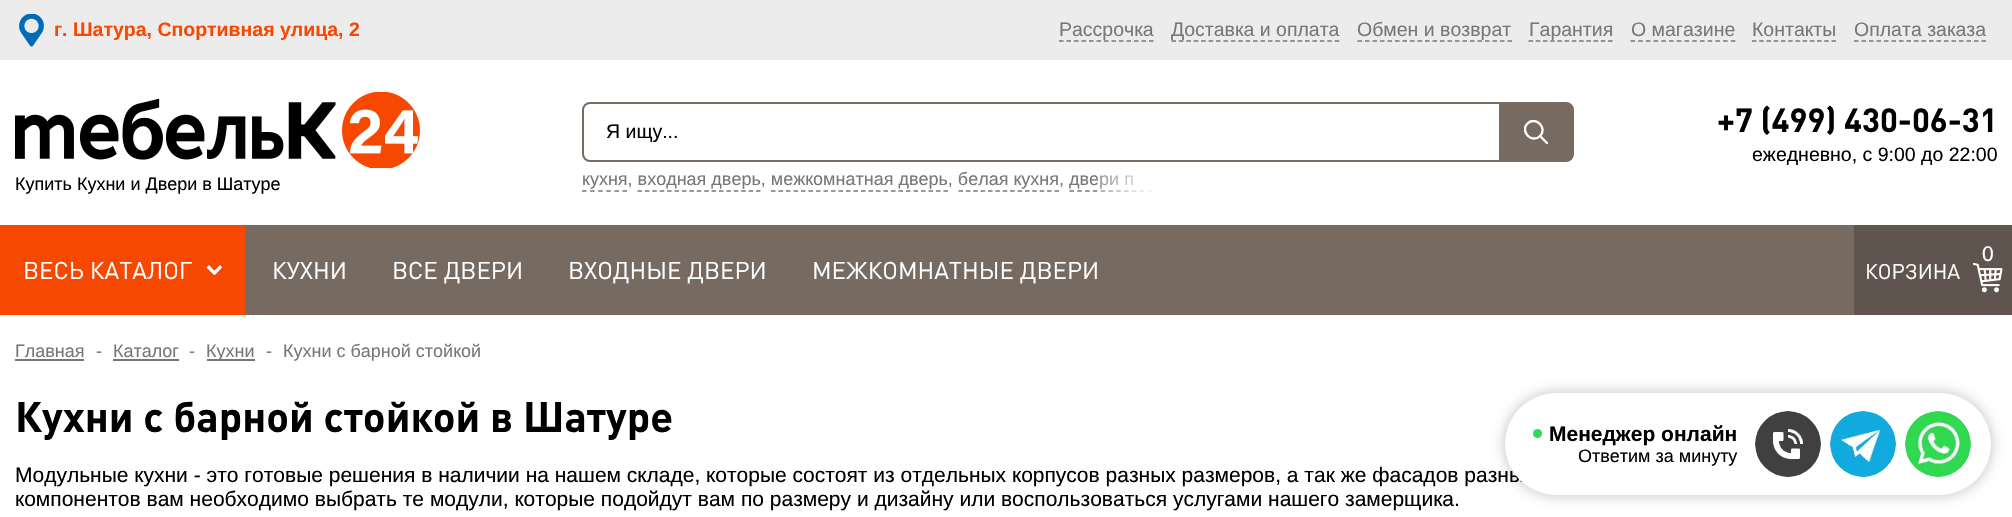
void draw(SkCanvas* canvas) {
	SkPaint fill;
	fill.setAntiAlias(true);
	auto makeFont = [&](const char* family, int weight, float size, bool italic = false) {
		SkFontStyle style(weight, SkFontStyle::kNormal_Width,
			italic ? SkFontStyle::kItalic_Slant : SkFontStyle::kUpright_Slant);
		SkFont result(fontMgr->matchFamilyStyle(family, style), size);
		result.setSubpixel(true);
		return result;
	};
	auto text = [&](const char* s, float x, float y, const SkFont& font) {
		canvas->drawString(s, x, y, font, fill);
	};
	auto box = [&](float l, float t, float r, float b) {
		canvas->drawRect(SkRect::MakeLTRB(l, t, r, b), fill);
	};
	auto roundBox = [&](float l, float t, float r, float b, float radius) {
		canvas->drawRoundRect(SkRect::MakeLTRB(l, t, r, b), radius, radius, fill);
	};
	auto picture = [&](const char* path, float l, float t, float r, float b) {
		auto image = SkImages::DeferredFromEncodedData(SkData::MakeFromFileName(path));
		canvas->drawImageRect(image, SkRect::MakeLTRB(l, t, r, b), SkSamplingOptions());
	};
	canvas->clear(0xFFFFFFFF);
	fill.setColor(0xFFECECEC);
	box(0, 0, 2012, 60);
	picture("image0.png", 19, 14, 44, 47);
	fill.setStyle(SkPaint::kStroke_Style);
	fill.setStrokeWidth(1.5f);
	fill.setColor(0xFF777777);
	fill.setPathEffect(SkDashPathEffect::Make({{4.5f, 3}}, 0));
	canvas->drawPath(SkPathBuilder().moveTo(1059, 41).lineTo(1153.5f, 41).detach(), fill);
	fill.setPathEffect(nullptr);
	fill.setPathEffect(SkDashPathEffect::Make({{4.5f, 2.92f}}, 0));
	canvas->drawPath(SkPathBuilder().moveTo(1171.5f, 41).lineTo(1339.5f, 41).detach(), fill);
	fill.setPathEffect(nullptr);
	fill.setPathEffect(SkDashPathEffect::Make({{4.5f, 3}}, 0));
	canvas->drawPath(SkPathBuilder().moveTo(1357.5f, 41).lineTo(1512, 41).detach(), fill);
	fill.setPathEffect(nullptr);
	fill.setPathEffect(SkDashPathEffect::Make({{4.5f, 2.73f}}, 0));
	canvas->drawPath(SkPathBuilder().moveTo(1528.5f, 41).lineTo(1612.5f, 41).detach(), fill);
	fill.setPathEffect(nullptr);
	fill.setPathEffect(SkDashPathEffect::Make({{4.5f, 3.22f}}, 0));
	canvas->drawPath(SkPathBuilder().moveTo(1630.5f, 41).lineTo(1735.5f, 41).detach(), fill);
	fill.setPathEffect(nullptr);
	fill.setPathEffect(SkDashPathEffect::Make({{4.5f, 2.73f}}, 0));
	canvas->drawPath(SkPathBuilder().moveTo(1752, 41).lineTo(1836, 41).detach(), fill);
	fill.setPathEffect(nullptr);
	fill.setPathEffect(SkDashPathEffect::Make({{4.5f, 3}}, 0));
	canvas->drawPath(SkPathBuilder().moveTo(1854, 41).lineTo(1986, 41).detach(), fill);
	fill.setPathEffect(nullptr);
	picture("image1.png", 15, 92, 420, 168);
	fill.setStrokeWidth(2);
	fill.setColor(0xFF776A61);
	canvas->drawRoundRect(SkRect::MakeLTRB(583, 103, 1573, 161), 7, 7, fill);
	fill.setStyle(SkPaint::kFill_Style);
	canvas->drawPath(SkPathBuilder().moveTo(1499, 102).lineTo(1563, 102).cubicTo(1569, 102, 1574, 107, 1574, 113).lineTo(1574, 151).cubicTo(1574, 157, 1569, 162, 1563, 162).lineTo(1499, 162).close().detach(), fill);
	canvas->save();
	canvas->clipRect(SkRect::MakeLTRB(1524, 120, 1548, 144));
	fill.setStyle(SkPaint::kStroke_Style);
	fill.setStrokeWidth(2.4f);
	fill.setStrokeCap(SkPaint::kRound_Cap);
	fill.setColor(0xFFFFFFFF);
	canvas->drawPath(SkPathBuilder().moveTo(1540, 136).cubicTo(1532, 144, 1519.5f, 131.5f, 1527.5f, 123.5f).cubicTo(1535.5f, 115.5f, 1548, 128, 1540, 136).close().moveTo(1540, 136).lineTo(1547, 143).detach(), fill);
	canvas->restore();
	fill.setStrokeWidth(1.5f);
	fill.setStrokeCap(SkPaint::kButt_Cap);
	fill.setColor(0xFF777777);
	fill.setPathEffect(SkDashPathEffect::Make({{4.5f, 3.6f}}, 0));
	canvas->drawPath(SkPathBuilder().moveTo(582, 191).lineTo(627, 191).detach(), fill);
	fill.setPathEffect(nullptr);
	fill.setPathEffect(SkDashPathEffect::Make({{4.5f, 2.91f}}, 0));
	canvas->drawPath(SkPathBuilder().moveTo(637.5f, 191).lineTo(760.5f, 191).detach(), fill);
	fill.setPathEffect(nullptr);
	fill.setPathEffect(SkDashPathEffect::Make({{4.5f, 3}}, 0));
	canvas->drawPath(SkPathBuilder().moveTo(771, 191).lineTo(948, 191).detach(), fill);
	fill.setPathEffect(nullptr);
	fill.setPathEffect(SkDashPathEffect::Make({{4.5f, 2.88f}}, 0));
	canvas->drawPath(SkPathBuilder().moveTo(958.5f, 191).lineTo(1059, 191).detach(), fill);
	fill.setPathEffect(nullptr);
	fill.setPathEffect(SkDashPathEffect::Make({{4.5f, 3.3f}}, 0));
	canvas->drawPath(SkPathBuilder().moveTo(1069.5f, 191).lineTo(1152, 191).detach(), fill);
	fill.setPathEffect(nullptr);
	fill.setStyle(SkPaint::kFill_Style);
	fill.setColor(0xFF776A61);
	box(245, 225, 1854, 315);
	fill.setColor(0xFFF74802);
	box(0, 225, 245, 315);
	fill.setColor(0xFFFFFFFF);
	canvas->drawPath(SkPathBuilder().moveTo(212.5f, 272.5f).lineTo(220, 265).lineTo(222, 267.5f).lineTo(215, 275).close().detach(), fill);
	canvas->drawPath(SkPathBuilder().moveTo(209, 265).lineTo(216, 272.5f).lineTo(214, 275).lineTo(206.5f, 267.5f).close().detach(), fill);
	fill.setColor(0xFF5F554E);
	box(1854, 225, 2012, 315);
	picture("image2.png", 1973, 263, 2003, 293);
	fill.setColor(0xFF777777);
	box(15, 359, 84, 361);
	box(113, 359, 179, 361);
	box(207, 359, 255, 361);
	fill.setColor(0x40000000);
	fill.setMaskFilter(SkMaskFilter::MakeBlur(kNormal_SkBlurStyle, 7));
	canvas->drawRoundRect(SkRect::MakeLTRB(1505, 393, 1991, 495), 51, 51, fill);
	fill.setMaskFilter(nullptr);
	auto font1 = makeFont("Liberation Sans", 700, 19.5f);
	fill.setColor(0xFFF74802);
	text("г. Шатура, Спортивная улица, 2", 54, 36, font1);
	auto font2 = makeFont("Liberation Sans", 400, 19.5f);
	fill.setColor(0xFF777777);
	text("Рассрочка", 1059, 36, font2);
	text("Доставка и оплата", 1171, 36, font2);
	text("Обмен и возврат", 1357, 36, font2);
	text("Гарантия", 1529, 36, font2);
	text("О магазине", 1631, 36, font2);
	text("Контакты", 1752, 36, font2);
	text("Оплата заказа", 1854, 36, font2);
	auto font3 = makeFont("Liberation Sans", 400, 18);
	fill.setColor(0xFF000000);
	text("Купить Кухни и Двери в Шатуре", 15, 190, font3);
	text("Я ищу...", 606, 138, font2);
	fill.setColor(0xFF777777);
	text("кухня, входная дверь, межкомнатная дверь, белая кухня, двери п", 582, 185, font3);
	{
		const SkColor colors[] = {0x33FFFFFF, 0xFFFFFFFF};
		const float stops[] = {0, 1};
		const SkPoint ends[] = {{1097, 180}, {1157, 180}};
		fill.setShader(SkGradientShader::MakeLinear(ends, colors, stops, 2, SkTileMode::kClamp));
		fill.setAlpha(255);
	}
	box(1097, 175, 1152, 192);
	auto font4 = makeFont("DIN", 700, 33);
	fill.setShader(nullptr);
	fill.setColor(0xFF000000);
	text("+7 (499) 430-06-31", 1717, 132, font4);
	text("ежедневно, с 9:00 до 22:00", 1752, 161, font2);
	auto font5 = makeFont("DIN", 400, 24);
	fill.setColor(0xFFFFFFFF);
	text("ВЕСЬ КАТАЛОГ", 23, 279, font5);
	text("КУХНИ", 272, 279, font5);
	text("ВСЕ ДВЕРИ", 392, 279, font5);
	text("ВХОДНЫЕ ДВЕРИ", 568, 279, font5);
	text("МЕЖКОМНАТНЫЕ ДВЕРИ", 812, 279, font5);
	auto font6 = makeFont("Liberation Sans", 400, 21);
	text("0", 1982, 261, font6);
	auto font7 = makeFont("DIN", 400, 21);
	text("КОРЗИНА", 1865, 279, font7);
	fill.setColor(0xFF777777);
	text("Главная", 15, 357, font3);
	text("-", 96, 357, font3);
	text("Каталог", 113, 357, font3);
	text("-", 189, 357, font3);
	text("Кухни", 206, 357, font3);
	text("-", 266, 357, font3);
	text("Кухни с барной стойкой", 283, 357, font3);
	auto font8 = makeFont("DIN", 700, 42);
	fill.setColor(0xFF000000);
	text("Кухни с барной стойкой в Шатуре", 15, 432, font8);
	text("Модульные кухни - это готовые решения в наличии на нашем складе, которые состоят из отдельных корпусов разных размеров, а так же фасадов разны", 15, 482, font6);
	text("компонентов вам необходимо выбрать те модули, которые подойдут вам по размеру и дизайну или воспользоваться услугами нашего замерщика.", 15, 506, font6);
	fill.setColor(0xFFFFFFFF);
	roundBox(1505, 393, 1991, 495, 51);
	fill.setColor(0xFF32D951);
	canvas->drawCircle(1537.5f, 433.5f, 4.5f, fill);
	auto font9 = makeFont("Liberation Sans", 700, 21);
	fill.setColor(0xFF000000);
	text("Менеджер онлайн", 1549, 441, font9);
	text("Ответим за минуту", 1578, 462, font3);
	picture("image3.png", 1755, 411, 1821, 477);
	picture("image4.png", 1830, 411, 1896, 477);
	picture("image5.png", 1905, 411, 1971, 477);
}
